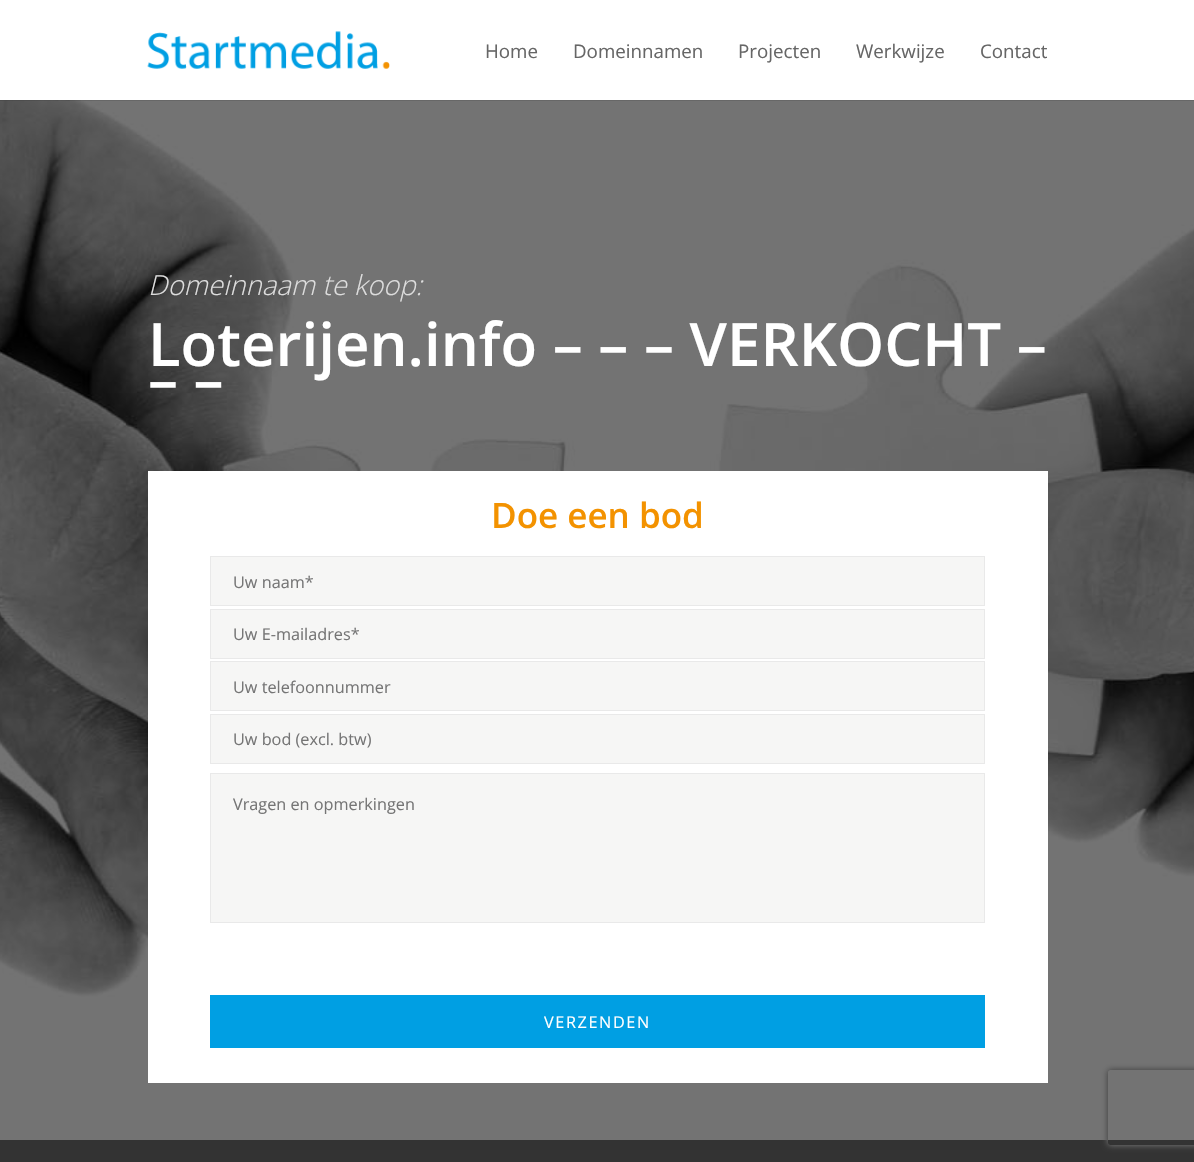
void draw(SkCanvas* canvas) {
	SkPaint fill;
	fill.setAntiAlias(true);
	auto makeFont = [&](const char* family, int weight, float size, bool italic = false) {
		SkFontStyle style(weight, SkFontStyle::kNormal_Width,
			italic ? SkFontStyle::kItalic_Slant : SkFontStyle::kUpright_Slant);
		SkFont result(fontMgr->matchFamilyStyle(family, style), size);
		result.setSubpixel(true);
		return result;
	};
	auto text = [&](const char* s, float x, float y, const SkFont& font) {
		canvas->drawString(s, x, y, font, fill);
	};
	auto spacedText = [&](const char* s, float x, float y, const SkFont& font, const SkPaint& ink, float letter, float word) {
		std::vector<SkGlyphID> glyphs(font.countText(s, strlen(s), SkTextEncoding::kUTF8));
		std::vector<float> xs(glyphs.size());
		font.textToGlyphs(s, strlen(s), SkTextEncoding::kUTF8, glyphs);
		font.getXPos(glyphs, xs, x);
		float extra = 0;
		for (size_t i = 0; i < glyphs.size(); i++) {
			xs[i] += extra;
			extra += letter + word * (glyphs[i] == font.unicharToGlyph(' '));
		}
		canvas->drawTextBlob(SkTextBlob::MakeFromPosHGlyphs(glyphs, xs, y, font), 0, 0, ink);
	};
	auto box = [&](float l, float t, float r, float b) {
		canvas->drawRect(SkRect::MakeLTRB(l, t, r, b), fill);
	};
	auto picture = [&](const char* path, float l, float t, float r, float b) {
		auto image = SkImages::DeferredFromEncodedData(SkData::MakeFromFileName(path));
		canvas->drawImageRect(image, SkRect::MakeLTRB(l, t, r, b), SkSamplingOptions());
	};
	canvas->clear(0xFFFFFFFF);
	picture("image0.png", 0, 100, 1194, 997);
	fill.setColor(0xFF333333);
	box(0, 1140, 1194, 1162);
	canvas->save();
	canvas->clipPath(SkPathBuilder(SkPathFillType::kEvenOdd).moveTo(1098, 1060).lineTo(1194, 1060).lineTo(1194, 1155).lineTo(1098, 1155).close().moveTo(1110.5f, 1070).lineTo(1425.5f, 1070).cubicTo(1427, 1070, 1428, 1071, 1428, 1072.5f).lineTo(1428, 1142.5f).cubicTo(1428, 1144, 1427, 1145, 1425.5f, 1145).lineTo(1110.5f, 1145).cubicTo(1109, 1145, 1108, 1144, 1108, 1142.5f).lineTo(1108, 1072.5f).cubicTo(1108, 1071, 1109, 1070, 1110.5f, 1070).close().detach(), true);
	fill.setColor(0xFF808080);
	fill.setMaskFilter(SkMaskFilter::MakeBlur(kNormal_SkBlurStyle, 3));
	canvas->drawRoundRect(SkRect::MakeLTRB(1108, 1070, 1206, 1145), 2.5f, 2.5f, fill);
	fill.setMaskFilter(nullptr);
	canvas->restore();
	fill.setColor(0x8C000000);
	box(0, 100, 1194, 1140);
	fill.setColor(0x1A000000);
	box(0, 100, 1194, 101);
	picture("image1.png", 147, 31, 390, 69);
	fill.setColor(0xFFFFFFFF);
	box(148, 471, 1048, 1083);
	fill.setColor(0xFFF6F6F5);
	canvas->drawRect(SkRect::MakeLTRB(210.5f, 556.5f, 984.5f, 605.5f), fill);
	fill.setStyle(SkPaint::kStroke_Style);
	fill.setStrokeWidth(1);
	fill.setColor(0xFFE9E9E9);
	canvas->drawRect(SkRect::MakeLTRB(210.5f, 556.5f, 984.5f, 605.5f), fill);
	fill.setStyle(SkPaint::kFill_Style);
	fill.setColor(0xFFF6F6F5);
	canvas->drawRect(SkRect::MakeLTRB(210.5f, 609.5f, 984.5f, 658.5f), fill);
	fill.setStyle(SkPaint::kStroke_Style);
	fill.setColor(0xFFE9E9E9);
	canvas->drawRect(SkRect::MakeLTRB(210.5f, 609.5f, 984.5f, 658.5f), fill);
	fill.setStyle(SkPaint::kFill_Style);
	fill.setColor(0xFFF6F6F5);
	canvas->drawRect(SkRect::MakeLTRB(210.5f, 661.5f, 984.5f, 710.5f), fill);
	fill.setStyle(SkPaint::kStroke_Style);
	fill.setColor(0xFFE9E9E9);
	canvas->drawRect(SkRect::MakeLTRB(210.5f, 661.5f, 984.5f, 710.5f), fill);
	fill.setStyle(SkPaint::kFill_Style);
	fill.setColor(0xFFF6F6F5);
	canvas->drawRect(SkRect::MakeLTRB(210.5f, 714.5f, 984.5f, 763.5f), fill);
	fill.setStyle(SkPaint::kStroke_Style);
	fill.setColor(0xFFE9E9E9);
	canvas->drawRect(SkRect::MakeLTRB(210.5f, 714.5f, 984.5f, 763.5f), fill);
	fill.setStyle(SkPaint::kFill_Style);
	fill.setColor(0xFFF6F6F5);
	canvas->drawRect(SkRect::MakeLTRB(210.5f, 773.5f, 984.5f, 922.5f), fill);
	fill.setStyle(SkPaint::kStroke_Style);
	fill.setColor(0xFFE9E9E9);
	canvas->drawRect(SkRect::MakeLTRB(210.5f, 773.5f, 984.5f, 922.5f), fill);
	fill.setStyle(SkPaint::kFill_Style);
	fill.setColor(0xFF009FE3);
	box(210, 995, 985, 1048);
	auto font1 = makeFont("Open Sans", 400, 18.75f);
	fill.setColor(0xFF666666);
	text("Home", 485, 58, font1);
	text("Domeinnamen", 573, 58, font1);
	text("Projecten", 738, 58, font1);
	text("Werkwijze", 856, 58, font1);
	text("Contact", 980, 58, font1);
	auto font2 = makeFont("Open Sans", 300, 27.5f, true);
	fill.setColor(0xFFDDDDDD);
	text("Domeinnaam te koop:", 148, 295, font2);
	auto font3 = makeFont("Open Sans", 600, 60);
	fill.setColor(0xFFFFFFFF);
	text("Loterijen.info – – – VERKOCHT –", 148, 366, font3);
	text("– –", 148, 401, font3);
	auto font4 = makeFont("Open Sans", 600, 35);
	fill.setColor(0xFFF39200);
	text("Doe een bod", 491, 528, font4);
	auto font5 = makeFont("Open Sans", 400, 16.25f);
	fill.setColor(0xFF757575);
	text("Uw naam*", 233, 588, font5);
	text("Uw E-mailadres*", 233, 640, font5);
	text("Uw telefoonnummer", 233, 693, font5);
	text("Uw bod (excl. btw)", 233, 745, font5);
	text("Vragen en opmerkingen", 233, 810, font5);
	fill.setColor(0xFFFFFFFF);
	spacedText("VERZENDEN", 544, 1028, font5, fill, 1.6f, 0);
}
